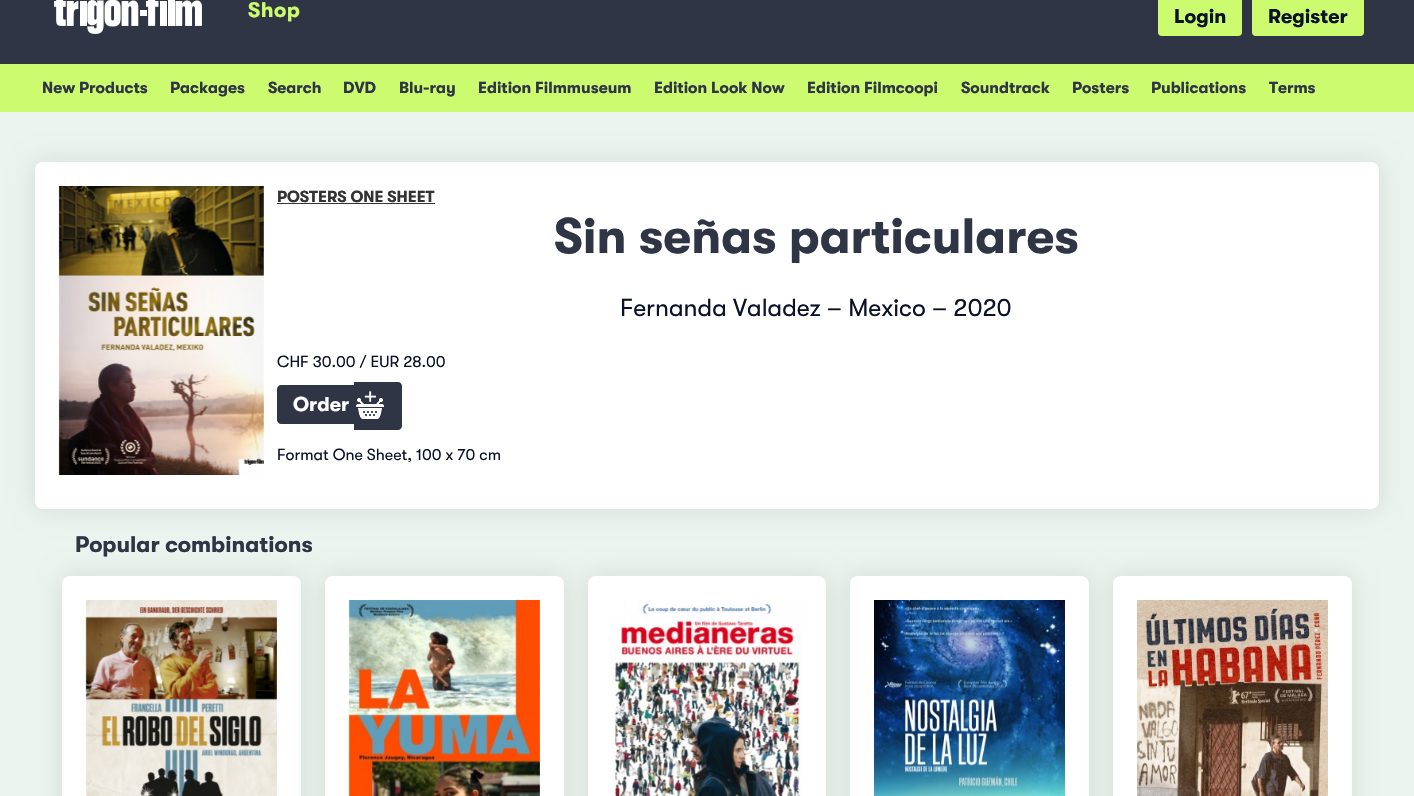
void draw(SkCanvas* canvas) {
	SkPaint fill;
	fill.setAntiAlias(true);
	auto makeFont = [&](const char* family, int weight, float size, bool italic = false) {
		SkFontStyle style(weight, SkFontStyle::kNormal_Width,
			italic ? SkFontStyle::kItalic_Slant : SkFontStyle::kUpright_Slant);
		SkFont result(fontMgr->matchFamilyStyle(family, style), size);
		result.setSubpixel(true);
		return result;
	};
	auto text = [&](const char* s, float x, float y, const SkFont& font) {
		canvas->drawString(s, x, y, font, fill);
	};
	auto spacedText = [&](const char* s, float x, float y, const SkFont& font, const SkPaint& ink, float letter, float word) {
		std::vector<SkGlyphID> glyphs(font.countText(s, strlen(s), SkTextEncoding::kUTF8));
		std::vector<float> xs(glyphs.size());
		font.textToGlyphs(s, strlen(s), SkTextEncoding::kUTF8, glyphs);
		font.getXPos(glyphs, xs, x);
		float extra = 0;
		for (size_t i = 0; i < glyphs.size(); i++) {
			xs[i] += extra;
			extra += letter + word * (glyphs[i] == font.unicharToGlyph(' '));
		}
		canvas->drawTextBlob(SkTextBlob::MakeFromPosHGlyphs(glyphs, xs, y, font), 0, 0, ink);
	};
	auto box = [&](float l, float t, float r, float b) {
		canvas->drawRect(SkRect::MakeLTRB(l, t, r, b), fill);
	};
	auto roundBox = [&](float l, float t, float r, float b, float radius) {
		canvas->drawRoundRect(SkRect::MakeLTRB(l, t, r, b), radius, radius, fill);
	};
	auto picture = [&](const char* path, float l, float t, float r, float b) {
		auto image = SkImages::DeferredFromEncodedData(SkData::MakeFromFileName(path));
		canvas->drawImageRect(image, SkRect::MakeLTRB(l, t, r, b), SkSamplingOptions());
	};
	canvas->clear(0xFFEBF4EE);
	fill.setColor(0xFF303545);
	box(0, 0, 1414, 64);
	picture("image0.png", 54, 0, 202, 34);
	fill.setColor(0xFFCCFB6F);
	roundBox(1158, -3, 1242, 36, 4);
	roundBox(1252, -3, 1364, 36, 4);
	box(0, 64, 1414, 112);
	fill.setColor(0x1A000000);
	fill.setMaskFilter(SkMaskFilter::MakeBlur(kNormal_SkBlurStyle, 12));
	canvas->drawRoundRect(SkRect::MakeLTRB(35, 162, 1379, 509), 8, 8, fill);
	fill.setMaskFilter(nullptr);
	fill.setColor(0xFFFFFFFF);
	roundBox(35, 162, 1379, 509, 8);
	picture("image1.png", 58, 186, 264, 475);
	fill.setColor(0xFF333333);
	box(277, 203, 435, 204);
	fill.setColor(0xFF303545);
	canvas->drawPath(SkPathBuilder().moveTo(281, 385).lineTo(354, 385).lineTo(354, 424).lineTo(281, 424).cubicTo(279, 424, 277, 422, 277, 420).lineTo(277, 389).cubicTo(277, 387, 279, 385, 281, 385).close().detach(), fill);
	canvas->drawPath(SkPathBuilder().moveTo(354, 382).lineTo(398, 382).cubicTo(400, 382, 402, 384, 402, 386).lineTo(402, 426).cubicTo(402, 428, 400, 430, 398, 430).lineTo(354, 430).close().detach(), fill);
	picture("image2.png", 356, 390, 384, 419);
	fill.setColor(0x1A000000);
	fill.setMaskFilter(SkMaskFilter::MakeBlur(kNormal_SkBlurStyle, 12));
	canvas->drawRoundRect(SkRect::MakeLTRB(62, 576, 301, 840), 8, 8, fill);
	fill.setMaskFilter(nullptr);
	fill.setColor(0xFFFFFFFF);
	roundBox(62, 576, 301, 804, 8);
	picture("image3.png", 85, 600, 277, 796);
	fill.setColor(0x1A000000);
	fill.setMaskFilter(SkMaskFilter::MakeBlur(kNormal_SkBlurStyle, 12));
	canvas->drawRoundRect(SkRect::MakeLTRB(325, 576, 564, 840), 8, 8, fill);
	fill.setMaskFilter(nullptr);
	fill.setColor(0xFFFFFFFF);
	roundBox(325, 576, 564, 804, 8);
	picture("image4.png", 348, 600, 540, 796);
	fill.setColor(0x1A000000);
	fill.setMaskFilter(SkMaskFilter::MakeBlur(kNormal_SkBlurStyle, 12));
	canvas->drawRoundRect(SkRect::MakeLTRB(588, 576, 826, 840), 8, 8, fill);
	fill.setMaskFilter(nullptr);
	fill.setColor(0xFFFFFFFF);
	roundBox(588, 576, 826, 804, 8);
	picture("image5.png", 612, 600, 802, 796);
	fill.setColor(0x1A000000);
	fill.setMaskFilter(SkMaskFilter::MakeBlur(kNormal_SkBlurStyle, 12));
	canvas->drawRoundRect(SkRect::MakeLTRB(850, 576, 1089, 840), 8, 8, fill);
	fill.setMaskFilter(nullptr);
	fill.setColor(0xFFFFFFFF);
	roundBox(850, 576, 1089, 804, 8);
	picture("image6.png", 874, 600, 1065, 796);
	fill.setColor(0x1A000000);
	fill.setMaskFilter(SkMaskFilter::MakeBlur(kNormal_SkBlurStyle, 12));
	canvas->drawRoundRect(SkRect::MakeLTRB(1113, 576, 1352, 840), 8, 8, fill);
	fill.setMaskFilter(nullptr);
	fill.setColor(0xFFFFFFFF);
	roundBox(1113, 576, 1352, 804, 8);
	picture("image7.png", 1137, 600, 1328, 796);
	auto font1 = makeFont("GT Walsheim", 700, 21);
	fill.setColor(0xFFCCFB6F);
	spacedText("Shop", 248, 17, font1, fill, 0.5f, 0);
	auto font2 = makeFont("GT Walsheim", 700, 20);
	fill.setColor(0xFF0A1129);
	text("Login", 1174, 23, font2);
	text("Register", 1268, 23, font2);
	auto font3 = makeFont("GT Walsheim", 700, 16);
	fill.setColor(0xFF303545);
	text("New Products", 42, 93, font3);
	text("Packages", 170, 93, font3);
	text("Search", 268, 93, font3);
	text("DVD", 343, 93, font3);
	text("Blu-ray", 399, 93, font3);
	text("Edition Filmmuseum", 478, 93, font3);
	text("Edition Look Now", 654, 93, font3);
	text("Edition Filmcoopi", 807, 93, font3);
	text("Soundtrack", 961, 93, font3);
	text("Posters", 1072, 93, font3);
	text("Publications", 1151, 93, font3);
	text("Terms", 1269, 93, font3);
	fill.setColor(0xFF333333);
	text("POSTERS ONE SHEET", 277, 202, font3);
	auto font4 = makeFont("GT Walsheim", 700, 49.5f);
	fill.setColor(0xFF303545);
	text("Sin señas particulares", 554, 253, font4);
	auto font5 = makeFont("GT Walsheim", 400, 24.75f);
	fill.setColor(0xFF0A1129);
	text("Fernanda Valadez – Mexico – 2020", 620, 316, font5);
	auto font6 = makeFont("GT Walsheim", 400, 16);
	text("CHF 30.00 / EUR 28.00", 277, 367, font6);
	fill.setColor(0xFFFFFFFF);
	text("Order", 293, 411, font2);
	fill.setColor(0xFF0A1129);
	text("Format One Sheet, 100 x 70 cm", 277, 460, font6);
	auto font7 = makeFont("GT Walsheim", 700, 22.6f);
	fill.setColor(0xFF303545);
	text("Popular combinations", 75, 552, font7);
}
